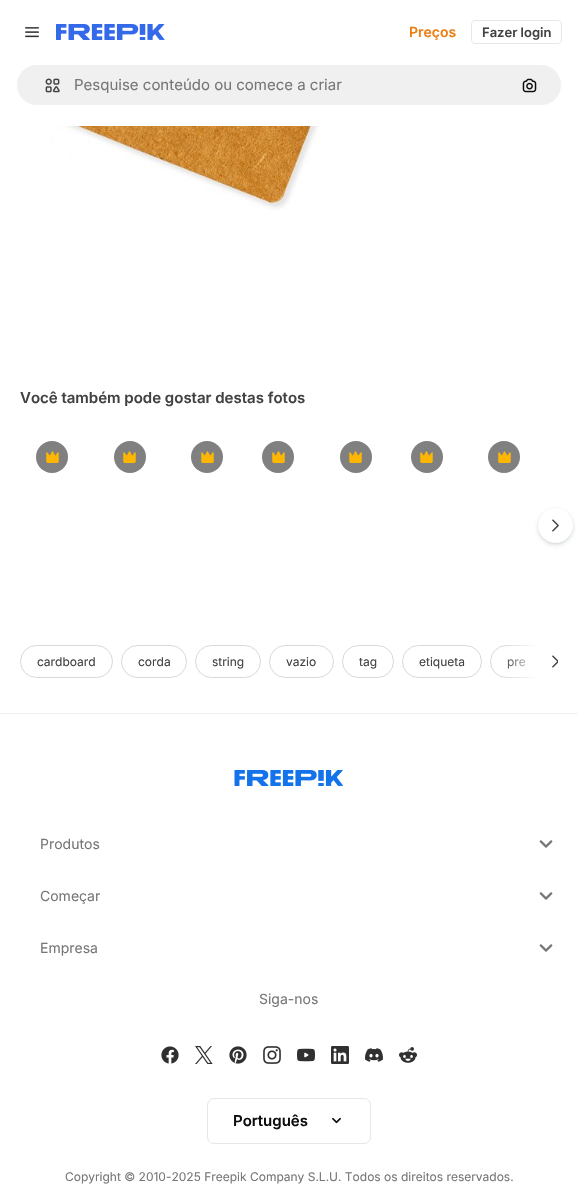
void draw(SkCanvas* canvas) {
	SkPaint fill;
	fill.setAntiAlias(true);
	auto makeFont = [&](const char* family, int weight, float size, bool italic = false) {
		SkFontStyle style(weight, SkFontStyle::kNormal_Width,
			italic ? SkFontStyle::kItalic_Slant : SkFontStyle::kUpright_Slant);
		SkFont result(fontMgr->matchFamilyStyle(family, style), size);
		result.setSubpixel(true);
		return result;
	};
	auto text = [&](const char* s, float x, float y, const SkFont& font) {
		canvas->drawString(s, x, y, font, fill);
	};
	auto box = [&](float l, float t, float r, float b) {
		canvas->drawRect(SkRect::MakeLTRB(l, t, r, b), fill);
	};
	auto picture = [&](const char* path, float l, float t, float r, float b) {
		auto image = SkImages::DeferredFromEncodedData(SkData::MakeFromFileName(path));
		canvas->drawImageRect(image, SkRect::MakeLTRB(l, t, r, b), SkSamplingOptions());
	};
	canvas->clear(0xFFFFFFFF);
	picture("image0.png", 25, 27, 39, 38);
	picture("image1.png", 56, 24, 165, 40);
	fill.setStyle(SkPaint::kStroke_Style);
	fill.setStrokeWidth(1);
	fill.setColor(0xFFE7E7E7);
	canvas->drawRoundRect(SkRect::MakeLTRB(471.5f, 20.5f, 561.5f, 43.5f), 3.5f, 3.5f, fill);
	fill.setStyle(SkPaint::kFill_Style);
	fill.setColor(0xFFF0F0F0);
	canvas->drawRoundRect(SkRect::MakeLTRB(16.5f, 64.5f, 561.5f, 105.5f), 20.5f, 20.5f, fill);
	fill.setStyle(SkPaint::kStroke_Style);
	fill.setColor(0xFFFFFFFF);
	canvas->drawRoundRect(SkRect::MakeLTRB(16.5f, 64.5f, 561.5f, 105.5f), 20.5f, 20.5f, fill);
	picture("image2.png", 45, 78, 60, 93);
	picture("image3.png", 522, 78, 537, 93);
	picture("image4.png", 41, 126, 368, 210);
	fill.setStyle(SkPaint::kFill_Style);
	fill.setColor(0xFF808080);
	canvas->drawCircle(52, 457, 16, fill);
	picture("image5.png", 46, 451, 59, 463);
	canvas->drawCircle(130, 457, 16, fill);
	picture("image5.png", 123, 451, 136, 463);
	canvas->drawCircle(207, 457, 16, fill);
	picture("image5.png", 201, 451, 214, 463);
	canvas->drawCircle(278, 457, 16, fill);
	picture("image5.png", 272, 451, 285, 463);
	canvas->drawCircle(356, 457, 16, fill);
	picture("image5.png", 349, 451, 362, 463);
	canvas->drawCircle(427, 457, 16, fill);
	picture("image5.png", 420, 451, 433, 463);
	canvas->drawCircle(504, 457, 16, fill);
	picture("image5.png", 498, 451, 511, 463);
	fill.setColor(0x26374957);
	fill.setMaskFilter(SkMaskFilter::MakeBlur(kNormal_SkBlurStyle, 2.5f));
	canvas->drawRoundRect(SkRect::MakeLTRB(538, 510, 573, 545), 17.5f, 17.5f, fill);
	fill.setMaskFilter(nullptr);
	fill.setColor(0x1A374957);
	fill.setMaskFilter(SkMaskFilter::MakeBlur(kNormal_SkBlurStyle, 1));
	canvas->drawRoundRect(SkRect::MakeLTRB(538, 509, 573, 544), 17.5f, 17.5f, fill);
	fill.setMaskFilter(nullptr);
	fill.setColor(0xFFFFFFFF);
	canvas->drawCircle(555.5f, 525.5f, 17.5f, fill);
	picture("image6.png", 552, 519, 559, 532);
	fill.setStyle(SkPaint::kStroke_Style);
	fill.setColor(0xFFD8D8D8);
	canvas->drawRoundRect(SkRect::MakeLTRB(20.5f, 645.5f, 112.5f, 677.5f), 16, 16, fill);
	canvas->drawRoundRect(SkRect::MakeLTRB(121.5f, 645.5f, 186.5f, 677.5f), 16, 16, fill);
	canvas->drawRoundRect(SkRect::MakeLTRB(195.5f, 645.5f, 260.5f, 677.5f), 16, 16, fill);
	canvas->drawRoundRect(SkRect::MakeLTRB(269.5f, 645.5f, 333.5f, 677.5f), 16, 16, fill);
	canvas->drawRoundRect(SkRect::MakeLTRB(342.5f, 645.5f, 393.5f, 677.5f), 16, 16, fill);
	canvas->drawRoundRect(SkRect::MakeLTRB(402.5f, 645.5f, 481.5f, 677.5f), 16, 16, fill);
	canvas->drawRoundRect(SkRect::MakeLTRB(490.5f, 645.5f, 556.5f, 677.5f), 16, 16, fill);
	fill.setStyle(SkPaint::kFill_Style);
	fill.setColor(0xFFFFFFFF);
	box(538, 645, 557, 678);
	picture("image7.png", 552, 655, 558, 668);
	fill.setColor(0xFFF0F0F0);
	box(0, 713, 578, 714);
	picture("image8.png", 234, 770, 343, 786);
	picture("image9.png", 539, 840, 553, 848);
	picture("image9.png", 539, 892, 553, 900);
	picture("image9.png", 539, 944, 553, 952);
	picture("image10.png", 161, 1046, 179, 1064);
	picture("image11.png", 195, 1046, 213, 1064);
	picture("image12.png", 229, 1046, 247, 1064);
	picture("image13.png", 263, 1046, 281, 1064);
	picture("image14.png", 297, 1048, 315, 1062);
	picture("image15.png", 331, 1046, 349, 1064);
	picture("image16.png", 365, 1048, 383, 1062);
	picture("image17.png", 399, 1047, 417, 1063);
	fill.setStyle(SkPaint::kStroke_Style);
	fill.setColor(0xFFE6E6E6);
	canvas->drawRoundRect(SkRect::MakeLTRB(207.5f, 1098.5f, 370.5f, 1143.5f), 6.5f, 6.5f, fill);
	picture("image18.png", 332, 1117, 341, 1124);
	auto font1 = makeFont("Inter", 600, 14);
	fill.setStyle(SkPaint::kFill_Style);
	fill.setColor(0xFFEA7E11);
	text("Preços", 409, 37, font1);
	auto font2 = makeFont("Inter", 600, 13);
	fill.setColor(0xFF424242);
	text("Fazer login", 482, 37, font2);
	auto font3 = makeFont("Inter", 400, 15);
	fill.setColor(0xFF777777);
	text("Pesquise conteúdo ou comece a criar", 74, 90, font3);
	auto font4 = makeFont("Inter", 600, 15);
	fill.setColor(0xFF424242);
	text("Você também pode gostar destas fotos", 20, 403, font4);
	auto font5 = makeFont("Inter", 400, 12);
	text("cardboard", 37, 666, font5);
	text("corda", 138, 666, font5);
	text("string", 212, 666, font5);
	text("vazio", 286, 666, font5);
	text("tag", 359, 666, font5);
	text("etiqueta", 419, 666, font5);
	text("pre", 507, 666, font5);
	{
		const SkColor colors[] = {0xFFFFFFFF, 0x00FFFFFF};
		const float stops[] = {0, 1};
		const SkPoint ends[] = {{538, 662}, {503, 662}};
		fill.setShader(SkGradientShader::MakeLinear(ends, colors, stops, 2, SkTileMode::kClamp));
		fill.setAlpha(255);
	}
	box(505, 645, 538, 678);
	auto font6 = makeFont("Inter", 400, 14);
	fill.setShader(nullptr);
	fill.setColor(0xFF777777);
	text("Produtos", 40, 849, font6);
	text("Começar", 40, 901, font6);
	text("Empresa", 40, 953, font6);
	text("Siga-nos", 259, 1004, font6);
	fill.setColor(0xFF0D0D0D);
	text("Português", 233, 1126, font4);
	fill.setColor(0xFF777777);
	text("Copyright © 2010-2025 Freepik Company S.L.U. Todos os direitos reservados.", 65, 1181, font5);
}
